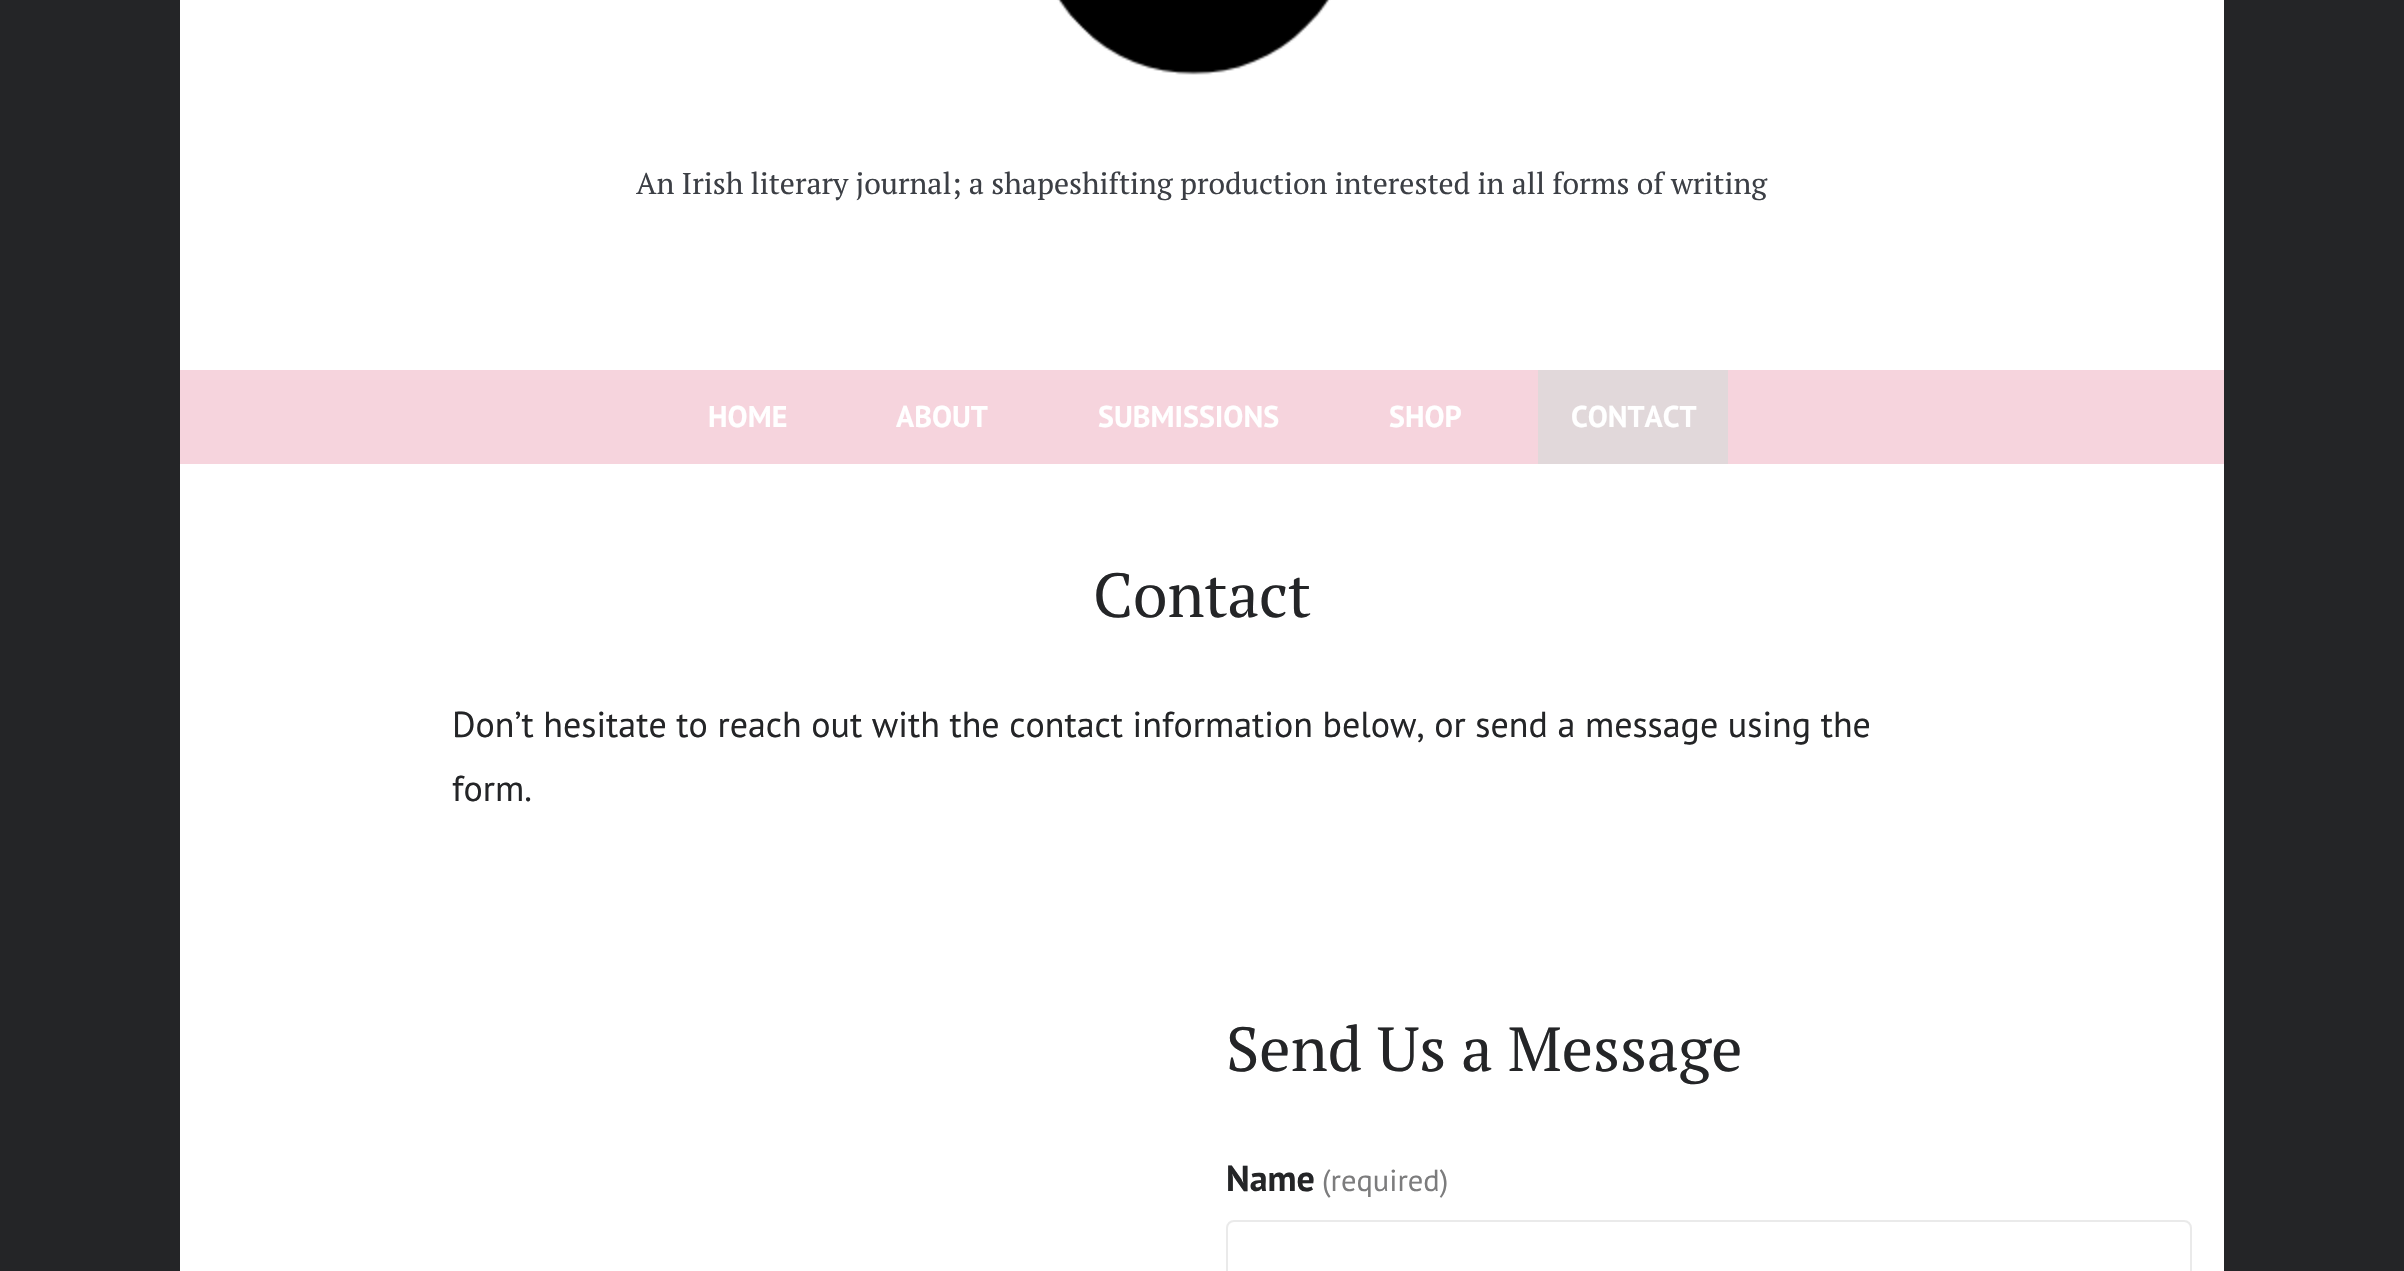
void draw(SkCanvas* canvas) {
	SkPaint fill;
	fill.setAntiAlias(true);
	auto makeFont = [&](const char* family, int weight, float size, bool italic = false) {
		SkFontStyle style(weight, SkFontStyle::kNormal_Width,
			italic ? SkFontStyle::kItalic_Slant : SkFontStyle::kUpright_Slant);
		SkFont result(fontMgr->matchFamilyStyle(family, style), size);
		result.setSubpixel(true);
		return result;
	};
	auto text = [&](const char* s, float x, float y, const SkFont& font) {
		canvas->drawString(s, x, y, font, fill);
	};
	auto box = [&](float l, float t, float r, float b) {
		canvas->drawRect(SkRect::MakeLTRB(l, t, r, b), fill);
	};
	auto picture = [&](const char* path, float l, float t, float r, float b) {
		auto image = SkImages::DeferredFromEncodedData(SkData::MakeFromFileName(path));
		canvas->drawImageRect(image, SkRect::MakeLTRB(l, t, r, b), SkSamplingOptions());
	};
	canvas->clear(0xFF242527);
	fill.setColor(0xFFFFFFFF);
	box(180, 0, 2224, 1271);
	picture("image0.png", 1057, 0, 1331, 75);
	fill.setColor(0xFFF6D4DD);
	box(180, 370, 2224, 464);
	fill.setColor(0xFFE1D8DA);
	box(1538, 370, 1728, 464);
	fill.setStyle(SkPaint::kStroke_Style);
	fill.setStrokeWidth(2);
	fill.setColor(0xFFEAEAEA);
	canvas->drawRoundRect(SkRect::MakeLTRB(1227, 1221, 2191, 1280), 7, 7, fill);
	auto font1 = makeFont("PT Serif", 400, 30);
	fill.setStyle(SkPaint::kFill_Style);
	fill.setColor(0xFF3C3F45);
	text("An Irish literary journal; a shapeshifting production interested in all forms of writing", 636, 194, font1);
	auto font2 = makeFont("PT Sans", 700, 30);
	fill.setColor(0xFFFFFFFF);
	text("HOME", 708, 427, font2);
	text("ABOUT", 896, 427, font2);
	text("SUBMISSIONS", 1098, 427, font2);
	text("SHOP", 1389, 427, font2);
	text("CONTACT", 1571, 427, font2);
	auto font3 = makeFont("PT Serif", 400, 62.25f);
	fill.setColor(0xFF242527);
	text("Contact", 1093, 617, font3);
	auto font4 = makeFont("PT Sans", 400, 36);
	text("Don’t hesitate to reach out with the contact information below, or send a message using the", 452, 737, font4);
	text("form.", 452, 801, font4);
	text("Send Us a Message", 1226, 1071, font3);
	auto font5 = makeFont("PT Sans", 700, 36);
	text("Name", 1226, 1191, font5);
	auto font6 = makeFont("PT Sans", 400, 30.5f);
	fill.setColor(0xFF7C7C7D);
	text("(required)", 1322, 1191, font6);
}
